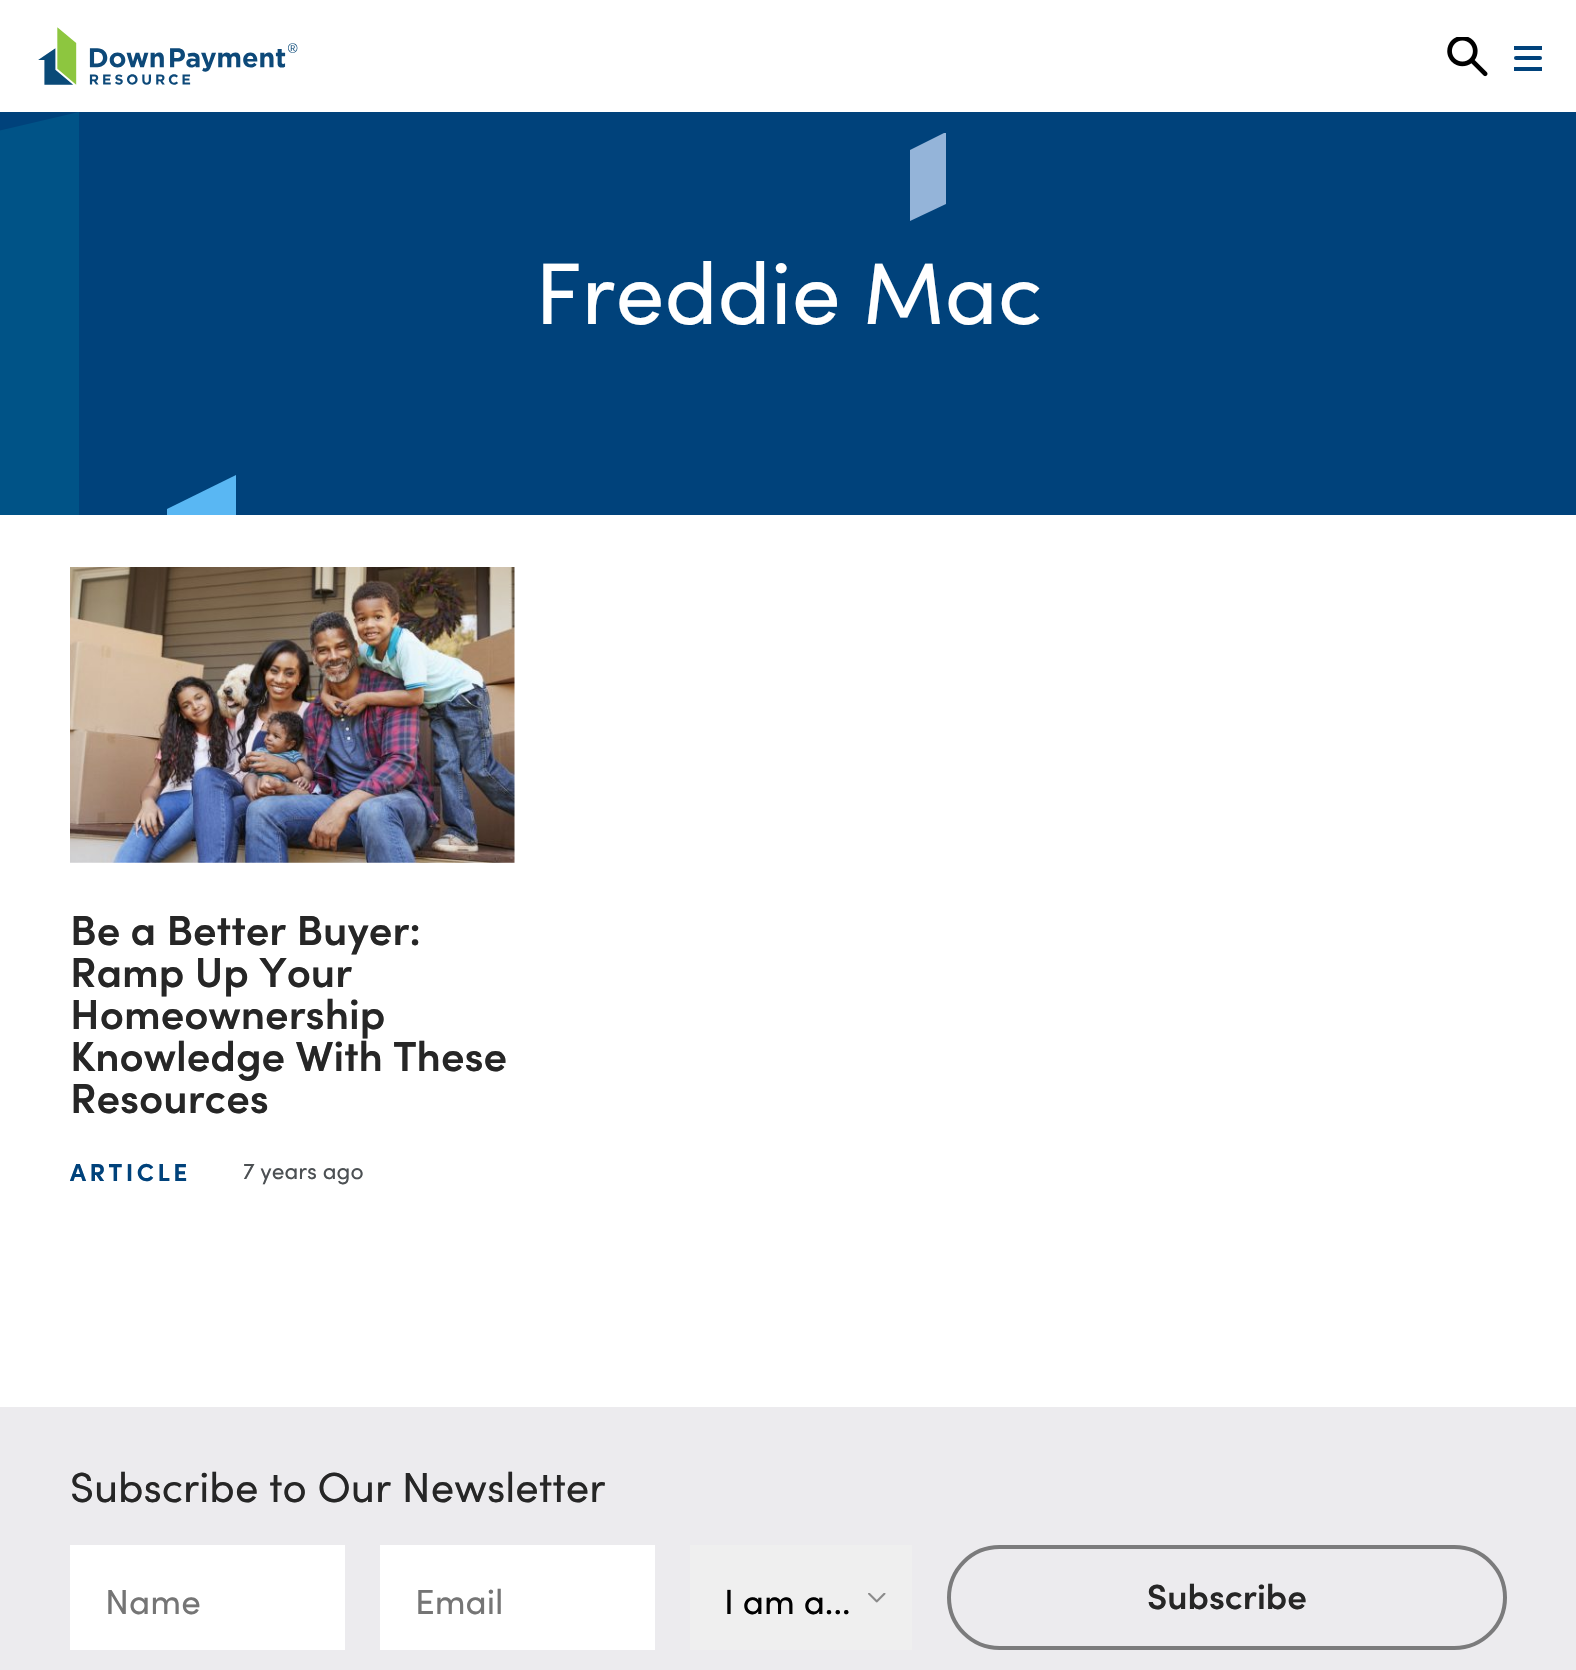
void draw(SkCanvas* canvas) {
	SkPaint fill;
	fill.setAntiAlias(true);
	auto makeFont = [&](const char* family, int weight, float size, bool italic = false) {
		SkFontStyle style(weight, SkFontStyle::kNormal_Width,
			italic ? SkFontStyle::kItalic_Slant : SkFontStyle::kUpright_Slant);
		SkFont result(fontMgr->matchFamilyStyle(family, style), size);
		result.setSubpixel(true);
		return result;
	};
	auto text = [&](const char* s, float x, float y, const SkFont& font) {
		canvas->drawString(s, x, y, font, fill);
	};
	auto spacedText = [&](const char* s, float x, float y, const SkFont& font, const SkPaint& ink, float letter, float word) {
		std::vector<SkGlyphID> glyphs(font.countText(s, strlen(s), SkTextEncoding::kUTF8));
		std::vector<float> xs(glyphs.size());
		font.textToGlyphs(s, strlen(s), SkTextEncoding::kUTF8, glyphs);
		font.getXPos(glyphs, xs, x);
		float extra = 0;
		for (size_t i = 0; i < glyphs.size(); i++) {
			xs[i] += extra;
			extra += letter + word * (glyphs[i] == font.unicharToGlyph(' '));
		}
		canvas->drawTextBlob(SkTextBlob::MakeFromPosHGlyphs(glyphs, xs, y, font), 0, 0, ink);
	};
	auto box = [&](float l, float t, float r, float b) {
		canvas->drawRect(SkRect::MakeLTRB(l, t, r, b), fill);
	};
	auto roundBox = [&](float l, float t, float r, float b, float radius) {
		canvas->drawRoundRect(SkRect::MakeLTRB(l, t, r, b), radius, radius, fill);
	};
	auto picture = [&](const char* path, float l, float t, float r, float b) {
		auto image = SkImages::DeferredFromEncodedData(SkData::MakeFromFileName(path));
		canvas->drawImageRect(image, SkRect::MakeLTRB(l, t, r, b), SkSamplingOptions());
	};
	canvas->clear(0xFFFFFFFF);
	picture("image0.png", 38, 27, 298, 85);
	picture("image1.png", 1447, 37, 1488, 77);
	fill.setColor(0xFF00427B);
	box(1514, 46, 1542, 50);
	box(1514, 67, 1542, 71);
	roundBox(1514, 56, 1542, 60, 2);
	box(0, 112, 1576, 515);
	canvas->save();
	canvas->clipRect(SkRect::MakeLTRB(0, 112, 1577, 515));
	fill.setColor(0xFF005387);
	canvas->drawPath(SkPathBuilder().moveTo(-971, 357).lineTo(79, 112).lineTo(79, 1092).lineTo(-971, 1337).close().detach(), fill);
	canvas->restore();
	fill.setColor(0xFF94B4D9);
	canvas->drawPath(SkPathBuilder().moveTo(946, 133).lineTo(946, 204).lineTo(910, 221).lineTo(910, 150).lineTo(944, 133).close().detach(), fill);
	canvas->save();
	canvas->clipRect(SkRect::MakeLTRB(0, 112, 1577, 515));
	fill.setColor(0xFF59B7F3);
	canvas->drawPath(SkPathBuilder().moveTo(167, 509).lineTo(236, 475).lineTo(236, 615).lineTo(167, 649).close().detach(), fill);
	canvas->restore();
	picture("image2.png", 70, 567, 515, 863);
	fill.setColor(0xFFECEBEE);
	box(0, 1407, 1576, 1670);
	fill.setColor(0xFFFFFFFF);
	box(70, 1545, 345, 1650);
	box(380, 1545, 655, 1650);
	fill.setColor(0xFFEFEFEF);
	box(690, 1545, 912, 1650);
	picture("image3.png", 868, 1593, 886, 1603);
	fill.setStyle(SkPaint::kStroke_Style);
	fill.setStrokeWidth(4);
	fill.setColor(0xFF7B7B7C);
	canvas->drawRoundRect(SkRect::MakeLTRB(949, 1547, 1505, 1648), 50.5f, 50.5f, fill);
	auto font1 = makeFont("Sofia", 400, 87.5f);
	fill.setStyle(SkPaint::kFill_Style);
	fill.setColor(0xFFFFFFFF);
	text("Freddie Mac", 535, 324, font1);
	auto font2 = makeFont("Sofia", 600, 42);
	fill.setColor(0xFF262626);
	text("Be a Better Buyer:", 70, 945, font2);
	text("Ramp Up Your", 70, 987, font2);
	text("Homeownership", 70, 1029, font2);
	text("Knowledge With These", 70, 1071, font2);
	text("Resources", 70, 1113, font2);
	auto font3 = makeFont("Sofia", 700, 24.5f);
	fill.setColor(0xFF00427B);
	spacedText("ARTICLE", 70, 1181, font3, fill, 3.5f, 0);
	auto font4 = makeFont("Sofia", 400, 22.75f);
	fill.setColor(0xFF4C5053);
	text("7 years ago", 243, 1179, font4);
	auto font5 = makeFont("Sofia", 400, 42);
	fill.setColor(0xFF262626);
	text("Subscribe to Our Newsletter", 70, 1502, font5);
	auto font6 = makeFont("Sofia", 400, 35);
	fill.setColor(0xFF757575);
	text("Name", 105, 1614, font6);
	text("Email", 415, 1614, font6);
	fill.setColor(0xFF000000);
	text("I am a...", 724, 1614, font6);
	auto font7 = makeFont("Sofia", 600, 35);
	fill.setColor(0xFF262626);
	text("Subscribe", 1147, 1609, font7);
}
